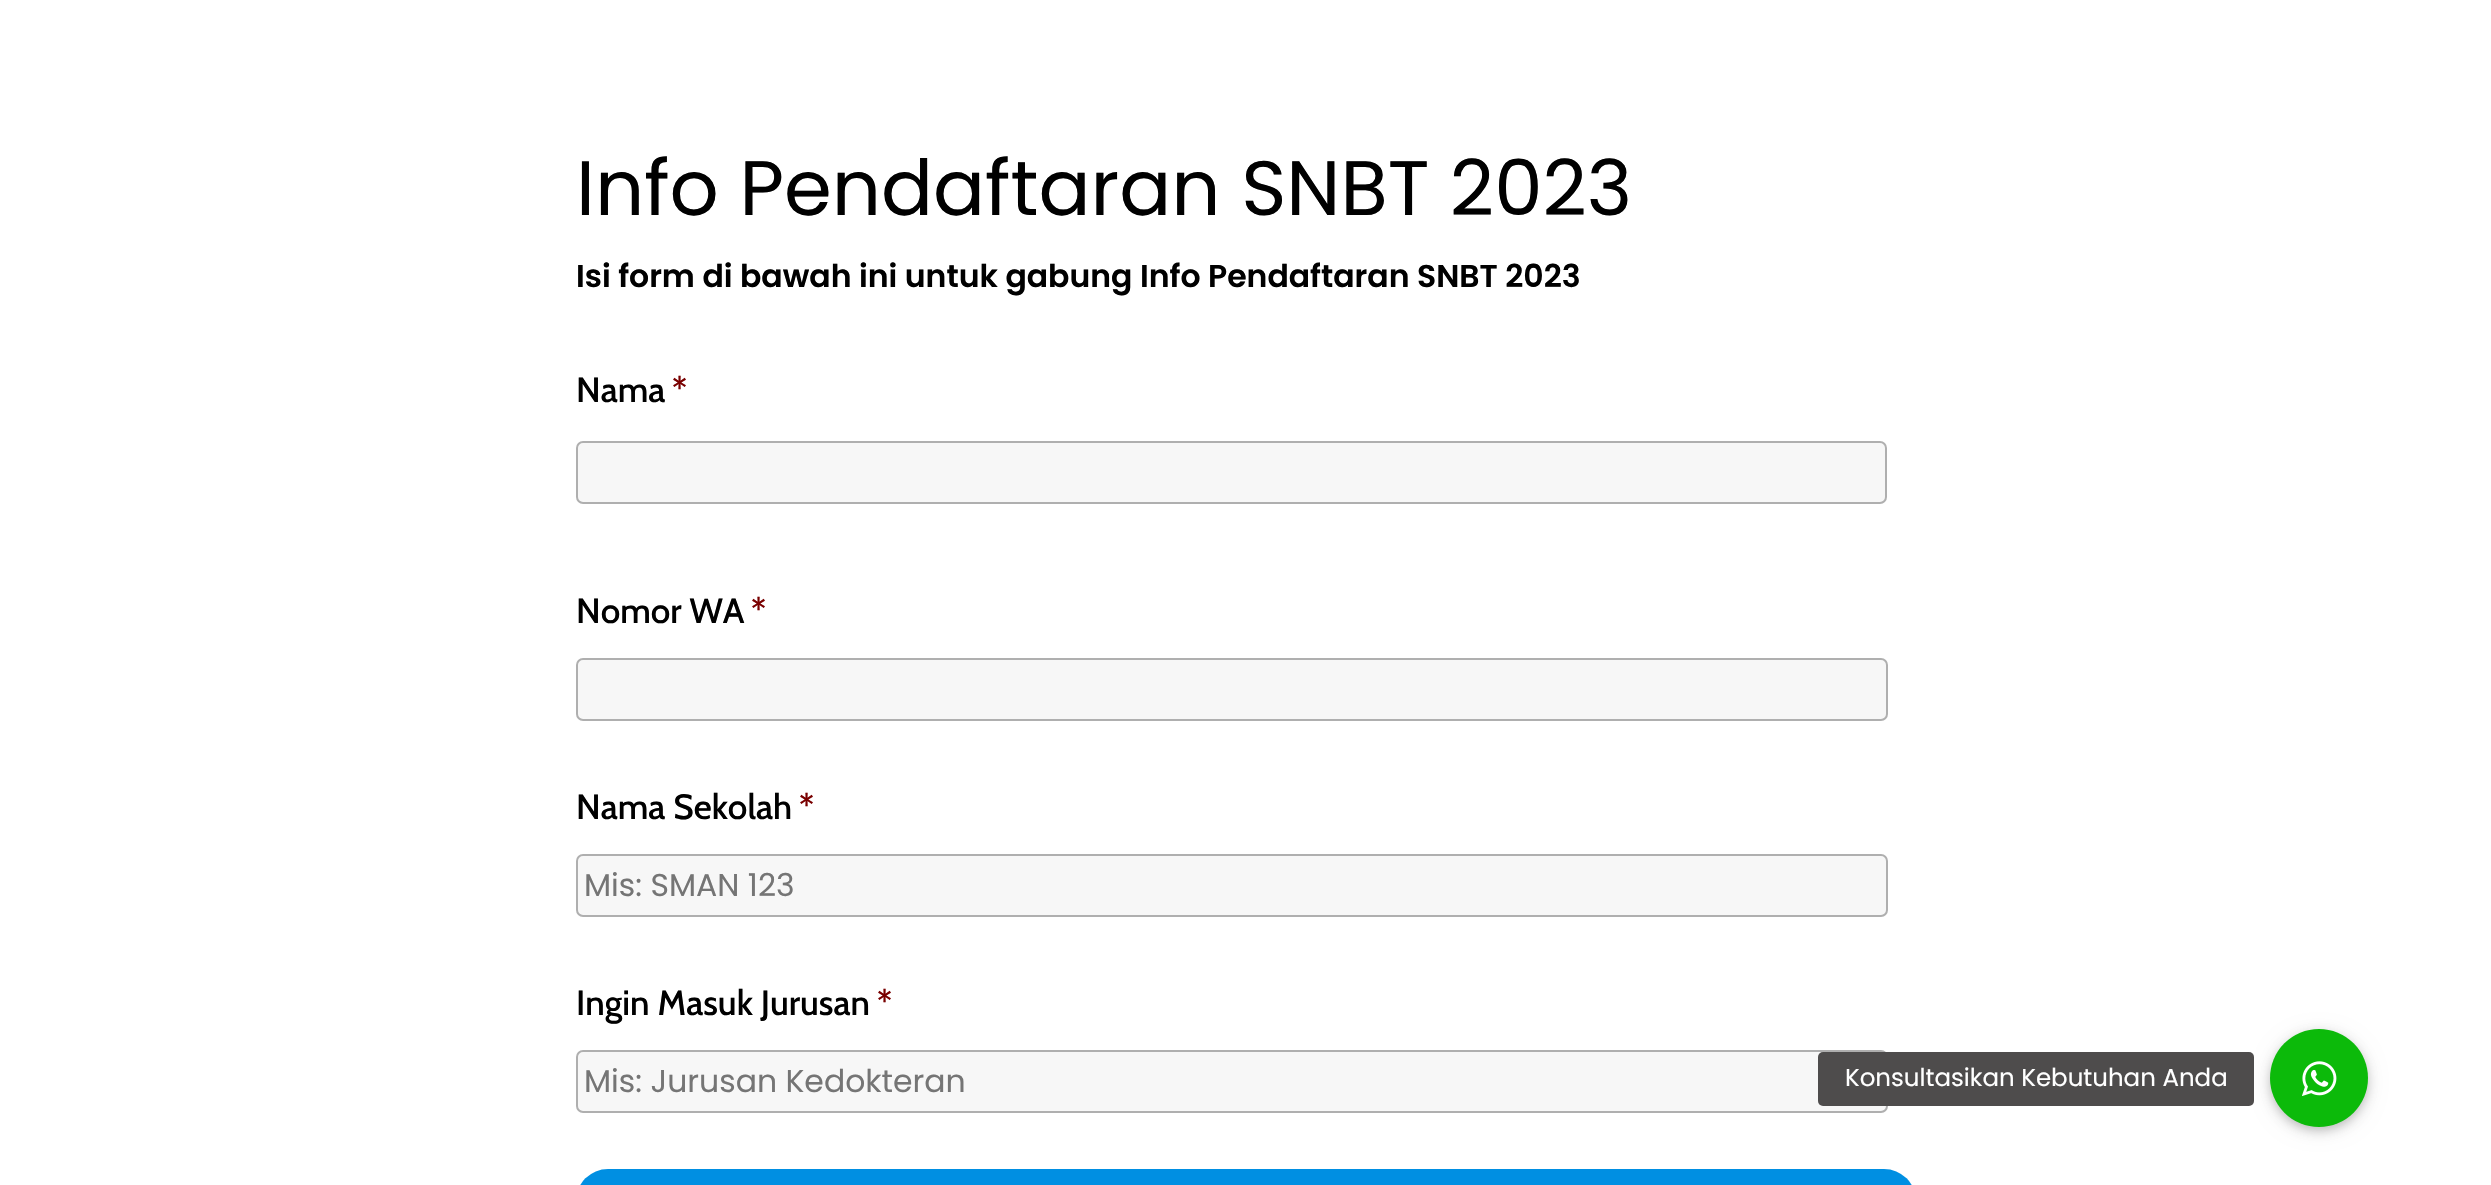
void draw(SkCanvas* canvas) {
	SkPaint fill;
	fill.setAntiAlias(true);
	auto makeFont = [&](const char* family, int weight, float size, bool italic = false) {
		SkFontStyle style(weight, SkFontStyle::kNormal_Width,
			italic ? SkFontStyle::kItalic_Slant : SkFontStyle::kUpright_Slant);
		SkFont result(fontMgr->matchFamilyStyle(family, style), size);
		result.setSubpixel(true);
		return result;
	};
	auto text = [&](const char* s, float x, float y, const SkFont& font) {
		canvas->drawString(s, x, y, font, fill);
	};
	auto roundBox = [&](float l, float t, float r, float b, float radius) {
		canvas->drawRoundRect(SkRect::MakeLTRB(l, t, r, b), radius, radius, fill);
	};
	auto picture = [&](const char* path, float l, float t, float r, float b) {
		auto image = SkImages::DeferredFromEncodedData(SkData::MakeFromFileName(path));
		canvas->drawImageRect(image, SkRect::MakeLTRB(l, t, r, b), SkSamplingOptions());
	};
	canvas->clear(0xFFFFFFFF);
	fill.setColor(0xFFF7F7F7);
	canvas->drawRoundRect(SkRect::MakeLTRB(577, 442, 1886, 503), 6, 6, fill);
	fill.setStyle(SkPaint::kStroke_Style);
	fill.setStrokeWidth(2);
	fill.setColor(0xFFAFAFAF);
	canvas->drawRoundRect(SkRect::MakeLTRB(577, 442, 1886, 503), 6, 6, fill);
	fill.setStyle(SkPaint::kFill_Style);
	fill.setColor(0xFFF7F7F7);
	canvas->drawRoundRect(SkRect::MakeLTRB(577, 659, 1887, 720), 6, 6, fill);
	fill.setStyle(SkPaint::kStroke_Style);
	fill.setColor(0xFFAFAFAF);
	canvas->drawRoundRect(SkRect::MakeLTRB(577, 659, 1887, 720), 6, 6, fill);
	fill.setStyle(SkPaint::kFill_Style);
	fill.setColor(0xFFF7F7F7);
	canvas->drawRoundRect(SkRect::MakeLTRB(577, 855, 1887, 916), 6, 6, fill);
	fill.setStyle(SkPaint::kStroke_Style);
	fill.setColor(0xFFAFAFAF);
	canvas->drawRoundRect(SkRect::MakeLTRB(577, 855, 1887, 916), 6, 6, fill);
	fill.setStyle(SkPaint::kFill_Style);
	fill.setColor(0xFFF7F7F7);
	canvas->drawRoundRect(SkRect::MakeLTRB(577, 1051, 1887, 1112), 6, 6, fill);
	fill.setStyle(SkPaint::kStroke_Style);
	fill.setColor(0xFFAFAFAF);
	canvas->drawRoundRect(SkRect::MakeLTRB(577, 1051, 1887, 1112), 6, 6, fill);
	fill.setStyle(SkPaint::kFill_Style);
	fill.setColor(0xFF008FE2);
	roundBox(576, 1169, 1916, 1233, 47.5f);
	fill.setColor(0x1F000000);
	fill.setMaskFilter(SkMaskFilter::MakeBlur(kNormal_SkBlurStyle, 9));
	canvas->drawRoundRect(SkRect::MakeLTRB(2270, 1033, 2368, 1131), 49, 49, fill);
	fill.setMaskFilter(nullptr);
	fill.setColor(0x29000000);
	fill.setMaskFilter(SkMaskFilter::MakeBlur(kNormal_SkBlurStyle, 4.5f));
	canvas->drawRoundRect(SkRect::MakeLTRB(2270, 1033, 2368, 1131), 49, 49, fill);
	fill.setMaskFilter(nullptr);
	fill.setColor(0xFF0CBA0A);
	canvas->drawCircle(2319, 1078, 49, fill);
	fill.setColor(0xFF4E4C4C);
	roundBox(1818, 1052, 2254, 1106, 5);
	picture("image0.png", 2302, 1061, 2337, 1096);
	auto font1 = makeFont("Poppins", 400, 77);
	fill.setColor(0xFF000000);
	text("Info Pendaftaran SNBT 2023", 576, 215, font1);
	auto font2 = makeFont("Poppins", 600, 31.5f);
	text("Isi form di bawah ini untuk gabung Info Pendaftaran SNBT 2023", 576, 287, font2);
	auto font3 = makeFont("Cabin", 500, 35);
	text("Nama", 576, 402, font3);
	fill.setColor(0xFF790000);
	text("*", 672, 402, font3);
	fill.setColor(0xFF000000);
	text("Nomor WA", 576, 623, font3);
	fill.setColor(0xFF790000);
	text("*", 751, 623, font3);
	fill.setColor(0xFF000000);
	text("Nama Sekolah", 576, 819, font3);
	fill.setColor(0xFF790000);
	text("*", 799, 819, font3);
	auto font4 = makeFont("Poppins", 400, 31.5f);
	fill.setColor(0xFF757575);
	text("Mis: SMAN 123", 584, 896, font4);
	fill.setColor(0xFF000000);
	text("Ingin Masuk Jurusan", 576, 1015, font3);
	fill.setColor(0xFF790000);
	text("*", 877, 1015, font3);
	fill.setColor(0xFF757575);
	text("Mis: Jurusan Kedokteran", 584, 1092, font4);
	auto font5 = makeFont("Poppins", 400, 24.5f);
	fill.setColor(0xFFFFFFFF);
	text("Konsultasikan Kebutuhan Anda", 1845, 1086, font5);
}
